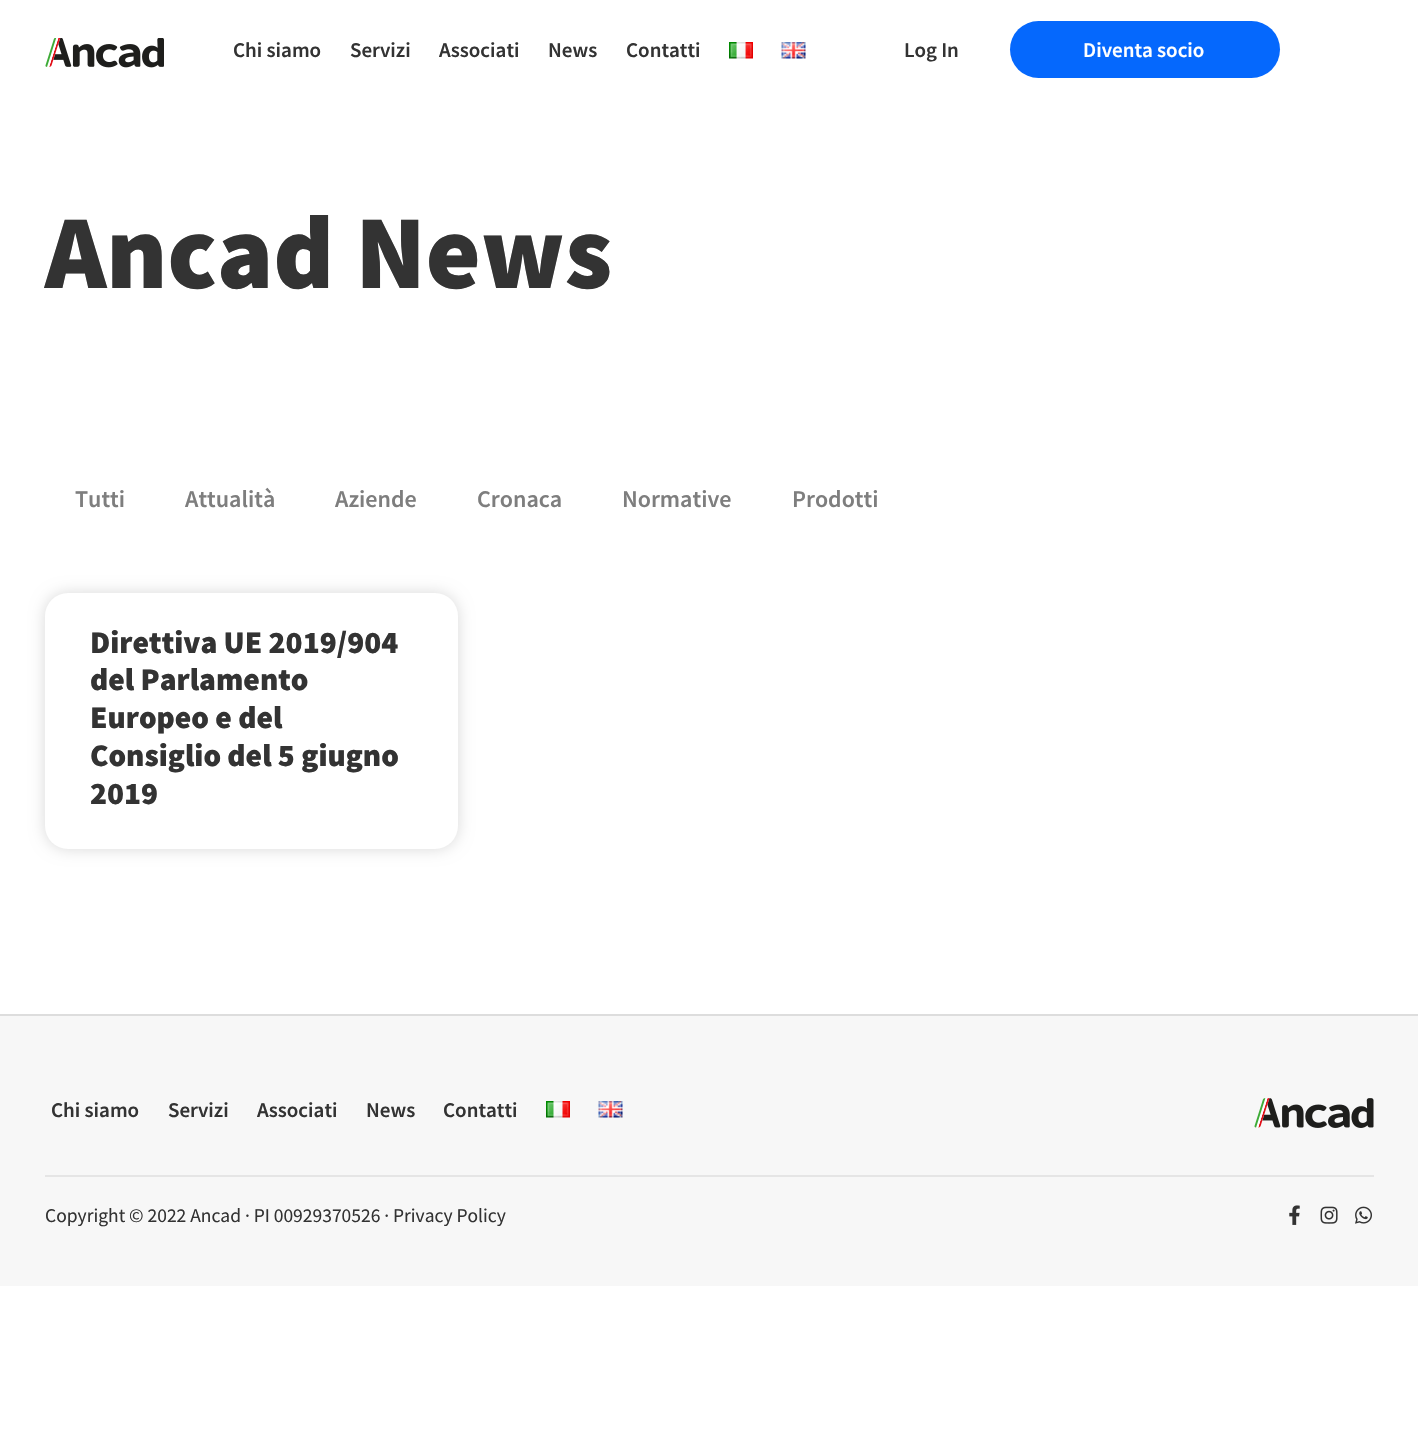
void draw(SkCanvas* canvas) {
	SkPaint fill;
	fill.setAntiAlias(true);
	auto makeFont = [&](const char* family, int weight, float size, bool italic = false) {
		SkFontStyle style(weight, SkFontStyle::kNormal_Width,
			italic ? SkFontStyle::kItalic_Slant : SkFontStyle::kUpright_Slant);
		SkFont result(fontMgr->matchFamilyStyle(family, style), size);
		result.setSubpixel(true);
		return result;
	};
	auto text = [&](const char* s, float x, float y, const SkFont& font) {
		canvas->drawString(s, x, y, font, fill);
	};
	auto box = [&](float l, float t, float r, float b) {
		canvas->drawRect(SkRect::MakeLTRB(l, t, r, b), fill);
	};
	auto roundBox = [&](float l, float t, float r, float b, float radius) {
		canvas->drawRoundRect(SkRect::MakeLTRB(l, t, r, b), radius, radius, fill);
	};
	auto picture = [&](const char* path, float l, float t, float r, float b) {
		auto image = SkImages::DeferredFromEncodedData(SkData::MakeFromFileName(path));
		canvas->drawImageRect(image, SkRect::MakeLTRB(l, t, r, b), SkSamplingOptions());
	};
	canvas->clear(0xFFFFFFFF);
	picture("image0.png", 45, 38, 164, 68);
	picture("image1.png", 729, 42, 753, 59);
	picture("image2.png", 781, 42, 806, 59);
	fill.setColor(0xFF0568FD);
	roundBox(1010, 21, 1280, 78, 28.5f);
	fill.setColor(0x26000000);
	fill.setMaskFilter(SkMaskFilter::MakeBlur(kNormal_SkBlurStyle, 7.5f));
	canvas->drawRoundRect(SkRect::MakeLTRB(45, 593, 458, 849), 23, 23, fill);
	fill.setMaskFilter(nullptr);
	fill.setColor(0xFFFFFFFF);
	roundBox(45, 593, 458, 849, 23);
	fill.setColor(0xFFF7F7F7);
	box(0, 1016, 1418, 1286);
	fill.setColor(0xFFDDDDDD);
	box(0, 1014, 1418, 1016);
	fill.setColor(0xFFE5E5E5);
	box(45, 1175, 1374, 1177);
	picture("image3.png", 546, 1101, 570, 1118);
	picture("image4.png", 598, 1101, 623, 1118);
	picture("image5.png", 1254, 1098, 1374, 1128);
	picture("image6.png", 1289, 1205, 1300, 1225);
	picture("image7.png", 1320, 1206, 1338, 1224);
	picture("image8.png", 1355, 1206, 1372, 1224);
	auto font1 = makeFont("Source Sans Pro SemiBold", 600, 21);
	fill.setColor(0xFF333333);
	text("Chi siamo", 233, 57, font1);
	text("Servizi", 350, 57, font1);
	text("Associati", 439, 57, font1);
	text("News", 548, 57, font1);
	text("Contatti", 626, 57, font1);
	text("Log In", 904, 57, font1);
	fill.setColor(0xFFFFFFFF);
	text("Diventa socio", 1083, 57, font1);
	auto font2 = makeFont("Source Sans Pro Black", 900, 105);
	fill.setColor(0xFF333333);
	text("Ancad News", 45, 288, font2);
	auto font3 = makeFont("Source Sans Pro SemiBold", 600, 24);
	fill.setColor(0xFF7E7E7E);
	text("Tutti", 75, 507, font3);
	text("Attualità", 185, 507, font3);
	text("Aziende", 335, 507, font3);
	text("Cronaca", 477, 507, font3);
	text("Normative", 622, 507, font3);
	text("Prodotti", 792, 507, font3);
	auto font4 = makeFont("Source Sans Pro Black", 900, 31.5f);
	fill.setColor(0xFF333333);
	text("Direttiva UE 2019/904", 90, 653, font4);
	text("del Parlamento", 90, 690, font4);
	text("Europeo e del", 90, 728, font4);
	text("Consiglio del 5 giugno", 90, 766, font4);
	text("2019", 90, 804, font4);
	text("Chi siamo", 51, 1117, font1);
	text("Servizi", 168, 1117, font1);
	text("Associati", 257, 1117, font1);
	text("News", 366, 1117, font1);
	text("Contatti", 443, 1117, font1);
	auto font5 = makeFont("Source Sans Pro", 400, 19.5f);
	text("Copyright © 2022 Ancad · PI 00929370526 · Privacy Policy", 45, 1222, font5);
}
